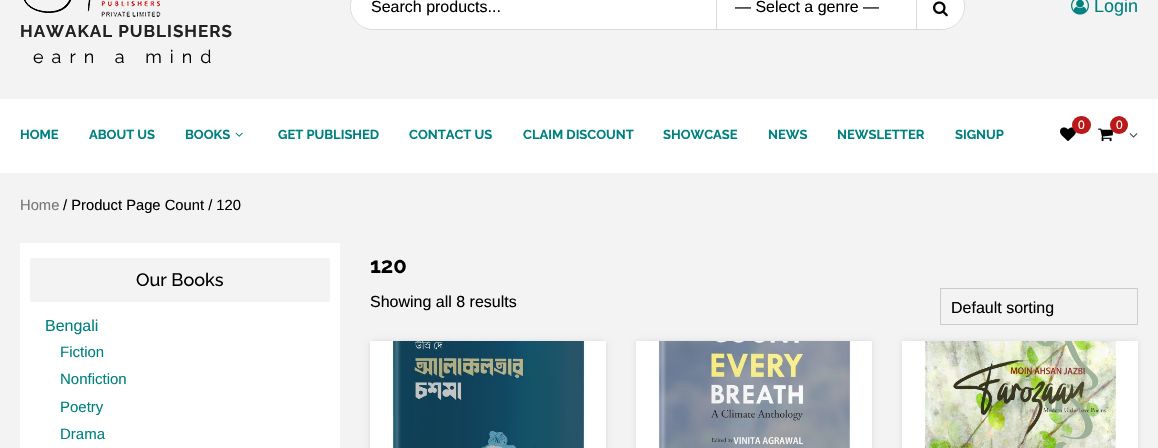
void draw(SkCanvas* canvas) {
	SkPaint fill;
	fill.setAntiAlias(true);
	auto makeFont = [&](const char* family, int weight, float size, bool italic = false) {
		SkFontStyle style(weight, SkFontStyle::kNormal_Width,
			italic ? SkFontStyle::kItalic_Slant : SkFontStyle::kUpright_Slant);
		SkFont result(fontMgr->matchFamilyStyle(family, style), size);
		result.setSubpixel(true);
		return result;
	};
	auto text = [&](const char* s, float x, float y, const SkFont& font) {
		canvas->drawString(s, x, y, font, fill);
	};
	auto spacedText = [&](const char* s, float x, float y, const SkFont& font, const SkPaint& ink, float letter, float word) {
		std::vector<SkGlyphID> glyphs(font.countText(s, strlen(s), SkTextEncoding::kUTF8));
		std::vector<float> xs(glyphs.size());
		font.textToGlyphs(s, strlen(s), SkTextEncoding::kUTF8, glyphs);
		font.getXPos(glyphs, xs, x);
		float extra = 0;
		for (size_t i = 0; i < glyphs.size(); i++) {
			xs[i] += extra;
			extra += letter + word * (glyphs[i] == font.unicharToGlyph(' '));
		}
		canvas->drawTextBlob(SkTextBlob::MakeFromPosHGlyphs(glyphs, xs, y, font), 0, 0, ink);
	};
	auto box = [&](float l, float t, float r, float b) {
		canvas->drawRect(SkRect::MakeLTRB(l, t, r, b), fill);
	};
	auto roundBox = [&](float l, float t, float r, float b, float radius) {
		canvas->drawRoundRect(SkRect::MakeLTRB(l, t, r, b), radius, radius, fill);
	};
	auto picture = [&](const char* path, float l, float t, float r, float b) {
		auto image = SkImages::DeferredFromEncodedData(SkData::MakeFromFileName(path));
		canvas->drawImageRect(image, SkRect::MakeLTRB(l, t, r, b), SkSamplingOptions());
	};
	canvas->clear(0xFFF3F3F3);
	fill.setColor(0xFFFFFFFF);
	canvas->drawRoundRect(SkRect::MakeLTRB(350.5f, -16.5f, 964.5f, 29.5f), 23, 23, fill);
	fill.setStyle(SkPaint::kStroke_Style);
	fill.setStrokeWidth(1);
	fill.setColor(0xFFD9D9D9);
	canvas->drawRoundRect(SkRect::MakeLTRB(350.5f, -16.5f, 964.5f, 29.5f), 23, 23, fill);
	fill.setStyle(SkPaint::kFill_Style);
	fill.setColor(0xFFFFFFFF);
	canvas->drawPath(SkPathBuilder().moveTo(373.5f, -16).lineTo(688, -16).lineTo(688, 29).lineTo(373.5f, 29).cubicTo(361, 29, 351, 19, 351, 6.5f).cubicTo(351, -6, 361, -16, 373.5f, -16).close().detach(), fill);
	fill.setColor(0xFFD9D9D9);
	box(716, 0, 717, 29);
	fill.setColor(0xFFFFFFFF);
	canvas->drawPath(SkPathBuilder().moveTo(916, -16).lineTo(941.5f, -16).cubicTo(954, -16, 964, -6, 964, 6.5f).cubicTo(964, 19, 954, 29, 941.5f, 29).lineTo(916, 29).close().detach(), fill);
	fill.setColor(0xFFD9D9D9);
	box(916, 0, 917, 29);
	picture("image0.png", 933, 1, 948, 17);
	picture("image1.png", 1071, 0, 1089, 15);
	picture("image2.png", 24, 0, 161, 17);
	fill.setColor(0xFFFFFFFF);
	box(0, 99, 1158, 173);
	picture("image3.png", 1060, 127, 1076, 142);
	fill.setColor(0xFFBB1919);
	roundBox(1072, 116, 1091, 134, 9);
	picture("image4.png", 1098, 128, 1113, 142);
	canvas->drawCircle(1119, 125, 9, fill);
	picture("image5.png", 1129, 133, 1138, 138);
	picture("image6.png", 235, 132, 243, 137);
	fill.setColor(0xFFFFFFFF);
	box(20, 243, 340, 448);
	fill.setColor(0xFFF3F3F3);
	box(30, 258, 330, 302);
	fill.setStyle(SkPaint::kStroke_Style);
	fill.setColor(0xFFCCCCCC);
	canvas->drawRect(SkRect::MakeLTRB(940.5f, 288.5f, 1137.5f, 324.5f), fill);
	fill.setStyle(SkPaint::kFill_Style);
	fill.setColor(0x1A000000);
	fill.setMaskFilter(SkMaskFilter::MakeBlur(kNormal_SkBlurStyle, 2.5f));
	canvas->drawRect(SkRect::MakeLTRB(370, 341, 606, 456), fill);
	fill.setMaskFilter(nullptr);
	fill.setColor(0xFFFFFFFF);
	box(370, 341, 606, 448);
	picture("image7.png", 392, 341, 587, 448);
	fill.setColor(0x1A000000);
	fill.setMaskFilter(SkMaskFilter::MakeBlur(kNormal_SkBlurStyle, 2.5f));
	canvas->drawRect(SkRect::MakeLTRB(636, 341, 872, 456), fill);
	fill.setMaskFilter(nullptr);
	fill.setColor(0xFFFFFFFF);
	box(636, 341, 872, 448);
	picture("image8.png", 657, 341, 853, 448);
	fill.setColor(0x1A000000);
	fill.setMaskFilter(SkMaskFilter::MakeBlur(kNormal_SkBlurStyle, 2.5f));
	canvas->drawRect(SkRect::MakeLTRB(902, 341, 1138, 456), fill);
	fill.setMaskFilter(nullptr);
	fill.setColor(0xFFFFFFFF);
	box(902, 341, 1138, 448);
	picture("image9.png", 924, 341, 1120, 448);
	auto font1 = makeFont("Liberation Sans", 400, 16);
	fill.setColor(0xFF000000);
	text("Search products...", 371, 12, font1);
	text("— Select a genre —", 735, 12, font1);
	auto font2 = makeFont("Liberation Sans", 400, 18);
	fill.setColor(0xFF008181);
	text("Login", 1094, 12, font2);
	auto font3 = makeFont("Raleway", 700, 17);
	fill.setColor(0xFF222222);
	spacedText("HAWAKAL PUBLISHERS", 20, 37, font3, fill, 1, 0);
	auto font4 = makeFont("Raleway", 400, 18);
	fill.setColor(0xFF000000);
	spacedText("earn a mind", 33, 63, font4, fill, 8, 0);
	auto font5 = makeFont("Liberation Sans", 400, 12);
	fill.setColor(0xFFFFFFFF);
	text("0", 1078, 129, font5);
	text("0", 1116, 129, font5);
	auto font6 = makeFont("Raleway", 700, 13);
	fill.setColor(0xFF008181);
	text("HOME", 20, 139, font6);
	text("ABOUT US", 89, 139, font6);
	text("BOOKS", 185, 139, font6);
	text("GET PUBLISHED", 278, 139, font6);
	text("CONTACT US", 409, 139, font6);
	text("CLAIM DISCOUNT", 523, 139, font6);
	text("SHOWCASE", 663, 139, font6);
	text("NEWS", 768, 139, font6);
	text("NEWSLETTER", 837, 139, font6);
	text("SIGNUP", 955, 139, font6);
	auto font7 = makeFont("Liberation Sans", 400, 14.75f);
	fill.setColor(0xFF777777);
	text("Home", 20, 210, font7);
	fill.setColor(0xFF000000);
	text("/ Product Page Count / 120", 63, 210, font7);
	auto font8 = makeFont("Raleway", 500, 18);
	text("Our Books", 136, 286, font8);
	fill.setColor(0xFF008181);
	text("Bengali", 45, 331, font1);
	auto font9 = makeFont("Liberation Sans", 400, 15);
	text("Fiction", 60, 357, font9);
	text("Nonfiction", 60, 384, font9);
	text("Poetry", 60, 412, font9);
	text("Drama", 60, 439, font9);
	auto font10 = makeFont("Raleway", 700, 22);
	fill.setColor(0xFF000000);
	text("120", 370, 273, font10);
	text("Showing all 8 results", 370, 307, font1);
	text("Default sorting", 951, 313, font1);
}
